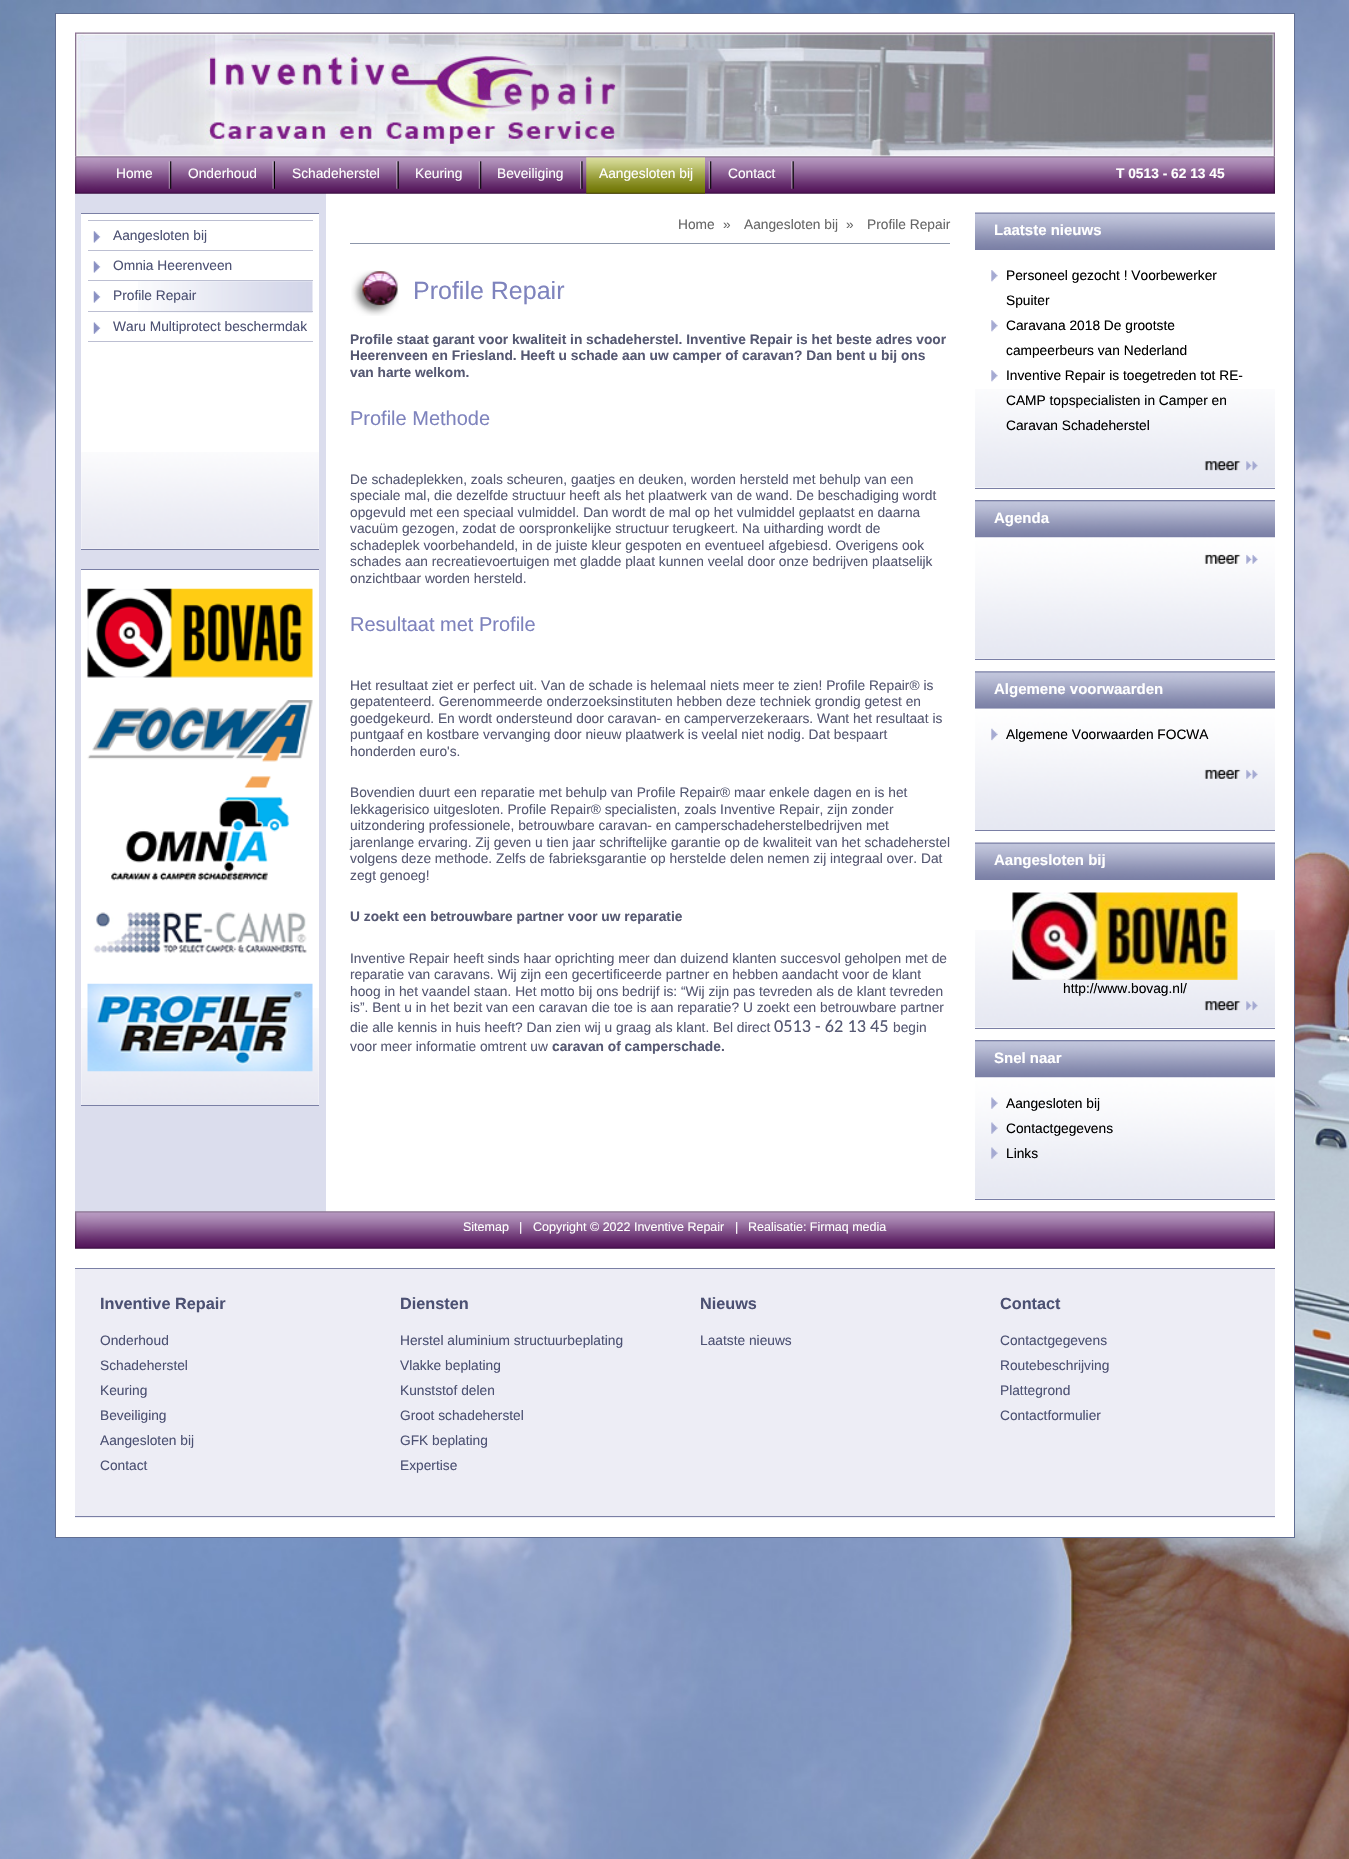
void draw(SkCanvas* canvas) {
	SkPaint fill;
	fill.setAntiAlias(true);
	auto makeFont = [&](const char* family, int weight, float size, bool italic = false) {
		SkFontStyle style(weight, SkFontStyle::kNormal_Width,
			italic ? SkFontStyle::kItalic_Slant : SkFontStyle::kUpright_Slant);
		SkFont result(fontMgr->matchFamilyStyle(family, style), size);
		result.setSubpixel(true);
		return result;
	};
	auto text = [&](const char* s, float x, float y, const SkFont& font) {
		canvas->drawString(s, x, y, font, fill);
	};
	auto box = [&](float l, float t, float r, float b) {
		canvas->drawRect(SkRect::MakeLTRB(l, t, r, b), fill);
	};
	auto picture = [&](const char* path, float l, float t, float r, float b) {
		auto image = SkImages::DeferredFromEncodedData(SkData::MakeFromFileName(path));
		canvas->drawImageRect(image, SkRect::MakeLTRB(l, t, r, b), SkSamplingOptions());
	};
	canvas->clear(0xFFFFFFFF);
	picture("image0.png", 0, 0, 1349, 1859);
	fill.setColor(0xFFFFFFFF);
	canvas->drawRect(SkRect::MakeLTRB(55.5f, 13.5f, 1294.5f, 1537.5f), fill);
	fill.setStyle(SkPaint::kStroke_Style);
	fill.setStrokeWidth(1);
	fill.setColor(0xFF606E92);
	canvas->drawRect(SkRect::MakeLTRB(55.5f, 13.5f, 1294.5f, 1537.5f), fill);
	picture("image1.png", 75, 32, 1275, 157);
	fill.setStyle(SkPaint::kFill_Style);
	fill.setColor(0xFFDBDDED);
	box(75, 193, 326, 1212);
	picture("image2.png", 75, 156, 100, 194);
	picture("image3.png", 100, 156, 1250, 194);
	picture("image4.png", 168, 161, 172, 189);
	picture("image5.png", 272, 161, 275, 189);
	picture("image6.png", 396, 161, 399, 189);
	picture("image4.png", 478, 161, 482, 189);
	picture("image7.png", 580, 161, 583, 189);
	picture("image4.png", 708, 161, 712, 189);
	picture("image8.png", 586, 156, 705, 194);
	picture("image6.png", 791, 161, 794, 189);
	picture("image9.png", 1250, 156, 1275, 194);
	fill.setColor(0xFFFFFFFF);
	box(81, 214, 319, 549);
	picture("image10.png", 81, 452, 319, 549);
	fill.setColor(0xFF7A7FA5);
	box(81, 213, 319, 214);
	box(81, 549, 319, 550);
	picture("image11.png", 93, 231, 101, 243);
	fill.setColor(0xFFBCBFD2);
	box(88, 220, 313, 221);
	box(88, 250, 313, 251);
	picture("image11.png", 93, 261, 101, 273);
	box(88, 280, 313, 281);
	picture("image12.png", 138, 281, 313, 313);
	picture("image13.png", 93, 291, 101, 303);
	box(88, 311, 313, 312);
	picture("image14.png", 93, 322, 101, 334);
	box(88, 341, 313, 342);
	fill.setColor(0xFFFFFFFF);
	box(81, 570, 319, 1105);
	picture("image15.png", 81, 1008, 319, 1105);
	fill.setColor(0xFF7A7FA5);
	box(81, 569, 319, 570);
	box(81, 1105, 319, 1106);
	picture("image16.png", 87, 588, 313, 678);
	picture("image17.png", 87, 700, 313, 788);
	picture("image18.png", 111, 796, 290, 881);
	picture("image19.png", 93, 912, 307, 953);
	picture("image20.png", 87, 983, 313, 1072);
	fill.setColor(0xFF8C96AA);
	box(350, 243, 950, 244);
	picture("image21.png", 351, 270, 399, 316);
	picture("image22.png", 975, 212, 1275, 250);
	picture("image23.png", 975, 389, 1275, 488);
	picture("image24.png", 991, 270, 998, 282);
	picture("image24.png", 991, 320, 998, 332);
	picture("image24.png", 991, 370, 998, 382);
	picture("image25.png", 1204, 461, 1258, 471);
	fill.setColor(0xFF7A7FA5);
	box(975, 488, 1275, 489);
	picture("image26.png", 975, 500, 1275, 538);
	picture("image27.png", 975, 537, 1275, 659);
	picture("image28.png", 1204, 554, 1258, 564);
	box(975, 659, 1275, 660);
	picture("image29.png", 975, 671, 1275, 709);
	picture("image30.png", 975, 708, 1275, 830);
	picture("image31.png", 991, 728, 998, 741);
	picture("image32.png", 1204, 769, 1258, 779);
	box(975, 830, 1275, 831);
	picture("image22.png", 975, 842, 1275, 880);
	picture("image33.png", 975, 930, 1275, 1028);
	picture("image34.png", 1012, 892, 1238, 980);
	picture("image25.png", 1204, 1001, 1258, 1011);
	box(975, 1028, 1275, 1029);
	picture("image26.png", 975, 1040, 1275, 1078);
	picture("image27.png", 975, 1077, 1275, 1199);
	picture("image35.png", 991, 1097, 998, 1109);
	picture("image36.png", 991, 1122, 998, 1134);
	picture("image37.png", 991, 1147, 998, 1159);
	box(975, 1199, 1275, 1200);
	picture("image38.png", 75, 1211, 100, 1249);
	picture("image39.png", 100, 1211, 1250, 1249);
	picture("image40.png", 1250, 1211, 1275, 1249);
	fill.setColor(0xFFEDEDF5);
	box(75, 1269, 1275, 1518);
	fill.setColor(0xFF7A7FA5);
	box(75, 1268, 1275, 1269);
	box(75, 1516, 1275, 1517);
	auto font1 = makeFont("Liberation Sans", 400, 13.75f);
	fill.setColor(0xFFFFFFFF);
	text("Home", 116, 178, font1);
	text("Onderhoud", 188, 178, font1);
	text("Schadeherstel", 292, 178, font1);
	text("Keuring", 415, 178, font1);
	text("Beveiliging", 497, 178, font1);
	text("Aangesloten bij", 599, 178, font1);
	text("Contact", 728, 178, font1);
	auto font2 = makeFont("Liberation Sans", 700, 13.75f);
	text("T 0513 - 62 13 45", 1116, 178, font2);
	fill.setColor(0xFF4C5173);
	text("Aangesloten bij", 113, 240, font1);
	text("Omnia Heerenveen", 113, 270, font1);
	text("Profile Repair", 113, 300, font1);
	text("Waru Multiprotect beschermdak", 113, 331, font1);
	fill.setColor(0xFF666666);
	text("Home", 678, 229, font1);
	text("»", 723, 229, font1);
	text("Aangesloten bij", 744, 229, font1);
	text("»", 846, 229, font1);
	text("Profile Repair", 867, 229, font1);
	auto font3 = makeFont("Liberation Sans", 400, 25);
	fill.setColor(0xFF7E83BD);
	text("Profile Repair", 413, 299, font3);
	fill.setColor(0xFF565973);
	text("Profile staat garant voor kwaliteit in schadeherstel. Inventive Repair is het beste adres voor", 350, 344, font2);
	text("Heerenveen en Friesland. Heeft u schade aan uw camper of caravan? Dan bent u bij ons", 350, 360, font2);
	text("van harte welkom.", 350, 377, font2);
	auto font4 = makeFont("Liberation Sans", 400, 20);
	fill.setColor(0xFF7E83BD);
	text("Profile Methode", 350, 425, font4);
	fill.setColor(0xFF565973);
	text("De schadeplekken, zoals scheuren, gaatjes en deuken, worden hersteld met behulp van een", 350, 484, font1);
	text("speciale mal, die dezelfde structuur heeft als het plaatwerk van de wand. De beschadiging wordt", 350, 500, font1);
	text("opgevuld met een speciaal vulmiddel. Dan wordt de mal op het vulmiddel geplaatst en daarna", 350, 517, font1);
	text("vacuüm gezogen, zodat de oorspronkelijke structuur terugkeert. Na uitharding wordt de", 350, 533, font1);
	text("schadeplek voorbehandeld, in de juiste kleur gespoten en eventueel afgebiesd. Overigens ook", 350, 550, font1);
	text("schades aan recreatievoertuigen met gladde plaat kunnen veelal door onze bedrijven plaatselijk", 350, 566, font1);
	text("onzichtbaar worden hersteld.", 350, 583, font1);
	fill.setColor(0xFF7E83BD);
	text("Resultaat met Profile", 350, 631, font4);
	fill.setColor(0xFF565973);
	text("Het resultaat ziet er perfect uit. Van de schade is helemaal niets meer te zien! Profile Repair® is", 350, 690, font1);
	text("gepatenteerd. Gerenommeerde onderzoeksinstituten hebben deze techniek grondig getest en", 350, 706, font1);
	text("goedgekeurd. En wordt ondersteund door caravan- en camperverzekeraars. Want het resultaat is", 350, 723, font1);
	text("puntgaaf en kostbare vervanging door nieuw plaatwerk is veelal niet nodig. Dat bespaart", 350, 739, font1);
	text("honderden euro's.", 350, 756, font1);
	text("Bovendien duurt een reparatie met behulp van Profile Repair® maar enkele dagen en is het", 350, 797, font1);
	text("lekkagerisico uitgesloten. Profile Repair® specialisten, zoals Inventive Repair, zijn zonder", 350, 814, font1);
	text("uitzondering professionele, betrouwbare caravan- en camperschadeherstelbedrijven met", 350, 830, font1);
	text("jarenlange ervaring. Zij geven u tien jaar schriftelijke garantie op de kwaliteit van het schadeherstel", 350, 847, font1);
	text("volgens deze methode. Zelfs de fabrieksgarantie op herstelde delen nemen zij integraal over. Dat", 350, 863, font1);
	text("zegt genoeg!", 350, 880, font1);
	text("U zoekt een betrouwbare partner voor uw reparatie", 350, 921, font2);
	text("Inventive Repair heeft sinds haar oprichting meer dan duizend klanten succesvol geholpen met de", 350, 963, font1);
	text("reparatie van caravans. Wij zijn een gecertificeerde partner en hebben aandacht voor de klant", 350, 979, font1);
	text("hoog in het vaandel staan. Het motto bij ons bedrijf is: “Wij zijn pas tevreden als de klant tevreden", 350, 996, font1);
	text("is”. Bent u in het bezit van een caravan die toe is aan reparatie? U zoekt een betrouwbare partner", 350, 1012, font1);
	text("die alle kennis in huis heeft? Dan zien wij u graag als klant. Bel direct", 350, 1032, font1);
	auto font5 = makeFont("Carlito", 400, 18.25f);
	text("0513 - 62 13 45", 774, 1032, font5);
	text("begin", 893, 1032, font1);
	text("voor meer informatie omtrent uw", 350, 1051, font1);
	text("caravan of camperschade.", 552, 1051, font2);
	auto font6 = makeFont("Liberation Sans", 700, 15);
	fill.setColor(0xFFFFFFFF);
	text("Laatste nieuws", 994, 235, font6);
	fill.setColor(0xFF000000);
	text("Personeel gezocht ! Voorbewerker", 1006, 280, font1);
	text("Spuiter", 1006, 305, font1);
	text("Caravana 2018 De grootste", 1006, 330, font1);
	text("campeerbeurs van Nederland", 1006, 355, font1);
	text("Inventive Repair is toegetreden tot RE-", 1006, 380, font1);
	text("CAMP topspecialisten in Camper en", 1006, 405, font1);
	text("Caravan Schadeherstel", 1006, 430, font1);
	fill.setColor(0xFFFFFFFF);
	text("Agenda", 994, 523, font6);
	text("Algemene voorwaarden", 994, 694, font6);
	fill.setColor(0xFF000000);
	text("Algemene Voorwaarden FOCWA", 1006, 739, font1);
	fill.setColor(0xFFFFFFFF);
	text("Aangesloten bij", 994, 865, font6);
	fill.setColor(0xFF000000);
	text("http://www.bovag.nl/", 1063, 993, font1);
	fill.setColor(0xFFFFFFFF);
	text("Snel naar", 994, 1063, font6);
	fill.setColor(0xFF000000);
	text("Aangesloten bij", 1006, 1108, font1);
	text("Contactgegevens", 1006, 1133, font1);
	text("Links", 1006, 1158, font1);
	auto font7 = makeFont("Liberation Sans", 400, 12.5f);
	fill.setColor(0xFFFFFFFF);
	text("Sitemap", 463, 1231, font7);
	text("|", 519, 1231, font7);
	text("Copyright © 2022 Inventive Repair", 533, 1231, font7);
	text("|", 735, 1231, font7);
	text("Realisatie: Firmaq media", 748, 1231, font7);
	auto font8 = makeFont("Liberation Sans", 700, 16.25f);
	fill.setColor(0xFF4C5173);
	text("Inventive Repair", 100, 1309, font8);
	text("Onderhoud", 100, 1345, font1);
	text("Schadeherstel", 100, 1370, font1);
	text("Keuring", 100, 1395, font1);
	text("Beveiliging", 100, 1420, font1);
	text("Aangesloten bij", 100, 1445, font1);
	text("Contact", 100, 1470, font1);
	text("Diensten", 400, 1309, font8);
	text("Herstel aluminium structuurbeplating", 400, 1345, font1);
	text("Vlakke beplating", 400, 1370, font1);
	text("Kunststof delen", 400, 1395, font1);
	text("Groot schadeherstel", 400, 1420, font1);
	text("GFK beplating", 400, 1445, font1);
	text("Expertise", 400, 1470, font1);
	text("Nieuws", 700, 1309, font8);
	text("Laatste nieuws", 700, 1345, font1);
	text("Contact", 1000, 1309, font8);
	text("Contactgegevens", 1000, 1345, font1);
	text("Routebeschrijving", 1000, 1370, font1);
	text("Plattegrond", 1000, 1395, font1);
	text("Contactformulier", 1000, 1420, font1);
}
